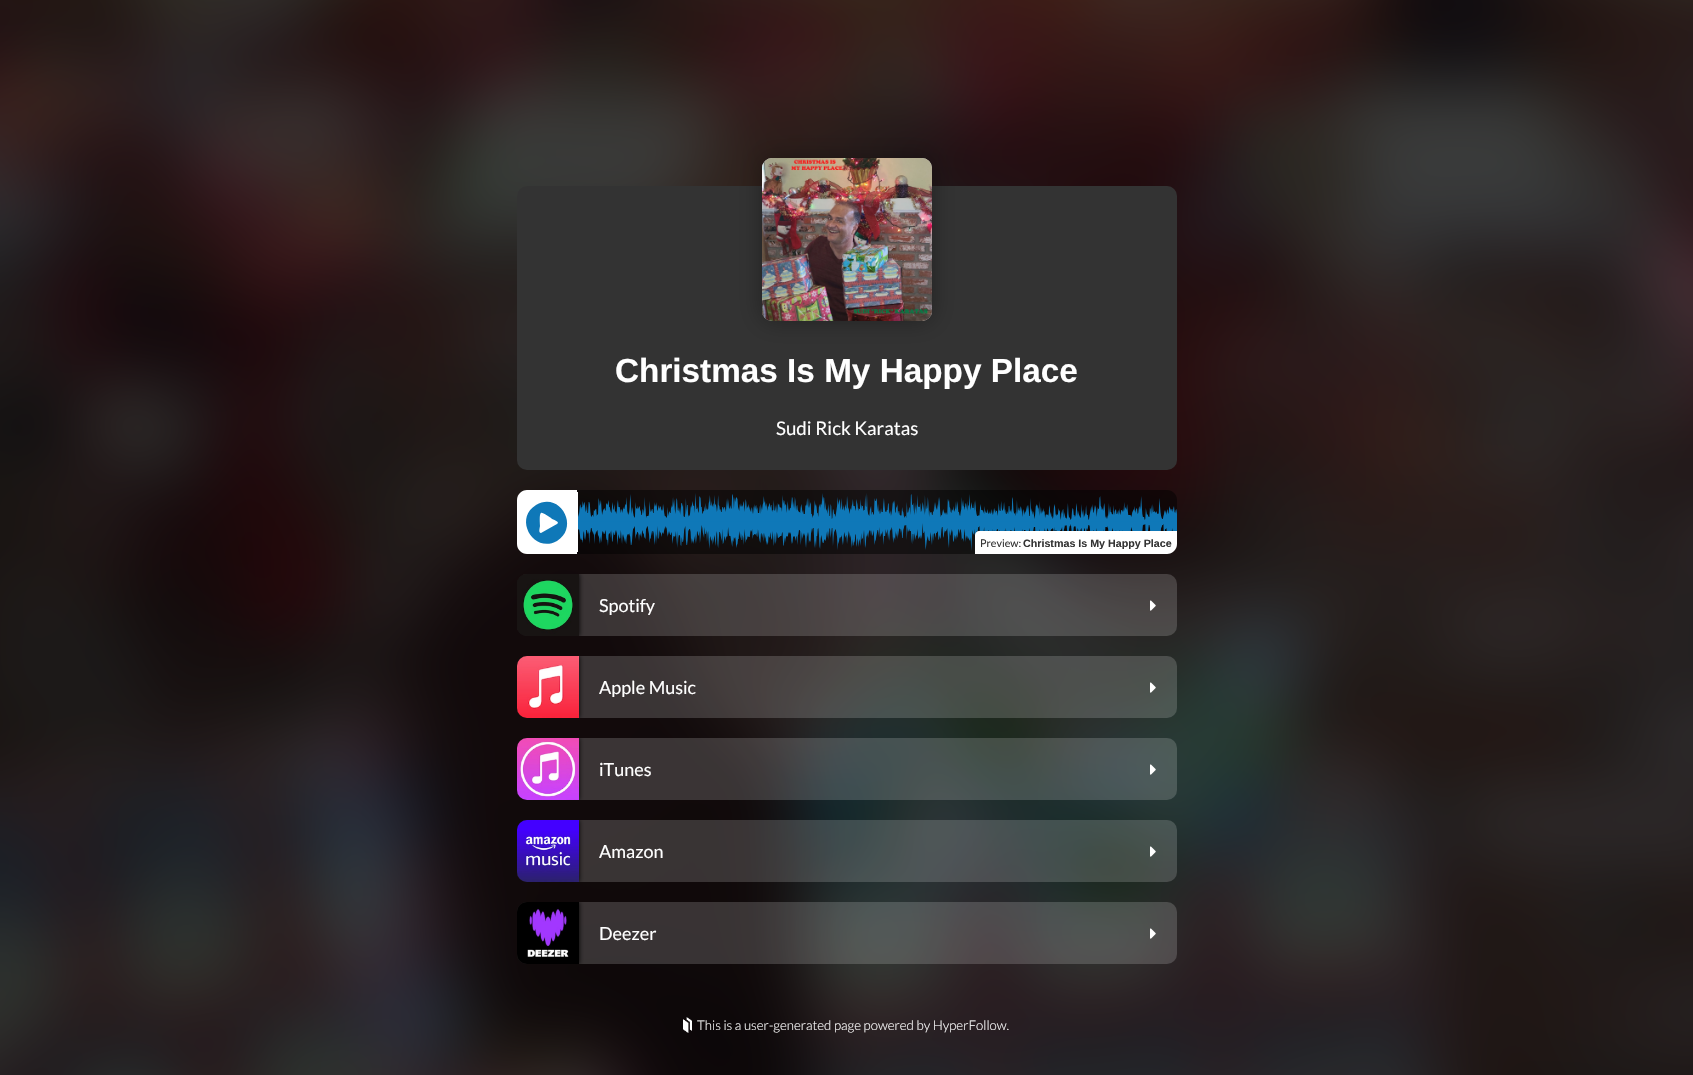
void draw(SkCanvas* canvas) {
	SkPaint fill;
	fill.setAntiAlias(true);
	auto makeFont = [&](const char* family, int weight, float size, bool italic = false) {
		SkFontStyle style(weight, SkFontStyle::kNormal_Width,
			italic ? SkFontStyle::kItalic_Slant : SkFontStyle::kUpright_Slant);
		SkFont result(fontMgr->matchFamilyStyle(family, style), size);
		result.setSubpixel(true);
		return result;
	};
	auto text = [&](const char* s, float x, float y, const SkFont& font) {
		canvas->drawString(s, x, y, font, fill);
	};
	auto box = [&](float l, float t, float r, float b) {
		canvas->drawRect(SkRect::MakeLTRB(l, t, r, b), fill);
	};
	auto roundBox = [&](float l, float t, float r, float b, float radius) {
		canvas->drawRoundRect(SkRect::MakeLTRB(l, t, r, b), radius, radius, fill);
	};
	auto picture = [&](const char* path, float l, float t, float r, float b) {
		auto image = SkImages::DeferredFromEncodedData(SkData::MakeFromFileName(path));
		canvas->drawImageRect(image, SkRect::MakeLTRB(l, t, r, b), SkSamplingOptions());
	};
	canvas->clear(0xFF000000);
	picture("image0.png", 0, 0, 1693, 1075);
	fill.setColor(0xFF333333);
	roundBox(517, 186, 1177, 470, 10);
	fill.setColor(0x59000000);
	fill.setMaskFilter(SkMaskFilter::MakeBlur(kNormal_SkBlurStyle, 12.5f));
	canvas->drawRoundRect(SkRect::MakeLTRB(762, 158, 932, 321), 10, 10, fill);
	fill.setMaskFilter(nullptr);
	fill.setColor(0xFFCCCCCC);
	roundBox(762, 158, 932, 321, 10);
	picture("image1.png", 762, 158, 932, 321);
	fill.setColor(0xFFFFFFFF);
	canvas->drawPath(SkPathBuilder().moveTo(527, 490).lineTo(577, 490).lineTo(577, 554).lineTo(527, 554).cubicTo(521.5f, 554, 517, 549.5f, 517, 544).lineTo(517, 500).cubicTo(517, 494.5f, 521.5f, 490, 527, 490).close().detach(), fill);
	fill.setColor(0xFF0F78B8);
	canvas->drawPath(SkPathBuilder().moveTo(536, 505).cubicTo(560, 491, 580, 527, 557, 541).cubicTo(534, 554, 513, 519, 536, 505).close().moveTo(557, 524).cubicTo(561, 522, 552, 519, 552, 519).cubicTo(550, 517, 542, 512, 541, 513).cubicTo(539, 514, 540, 524, 540, 526).cubicTo(540, 527, 538, 533, 541, 533).close().detach(), fill);
	fill.setColor(0x80000000);
	canvas->drawPath(SkPathBuilder().moveTo(577, 490).lineTo(1167, 490).cubicTo(1172.5f, 490, 1177, 494.5f, 1177, 500).lineTo(1177, 544).cubicTo(1177, 549.5f, 1172.5f, 554, 1167, 554).lineTo(577, 554).close().detach(), fill);
	fill.setColor(0xFFFFFFFF);
	box(577, 492, 578, 552);
	picture("image2.png", 578, 493, 1177, 551);
	canvas->drawPath(SkPathBuilder().moveTo(979, 531).lineTo(1177, 531).lineTo(1177, 544).cubicTo(1177, 549.5f, 1172.5f, 554, 1167, 554).lineTo(975, 554).lineTo(975, 535).cubicTo(975, 533, 977, 531, 979, 531).close().detach(), fill);
	fill.setColor(0x2BFFFFFF);
	roundBox(517, 574, 1177, 636, 10);
	canvas->save();
	canvas->clipPath(SkPathBuilder().moveTo(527, 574).lineTo(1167, 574).cubicTo(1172.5f, 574, 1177, 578.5f, 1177, 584).lineTo(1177, 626).cubicTo(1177, 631.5f, 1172.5f, 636, 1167, 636).lineTo(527, 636).cubicTo(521.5f, 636, 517, 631.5f, 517, 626).lineTo(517, 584).cubicTo(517, 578.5f, 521.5f, 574, 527, 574).close().detach(), true);
	fill.setColor(0xFF000000);
	fill.setMaskFilter(SkMaskFilter::MakeBlur(kNormal_SkBlurStyle, 2.5f));
	canvas->drawRect(SkRect::MakeLTRB(517, 574, 579, 636), fill);
	fill.setMaskFilter(nullptr);
	canvas->restore();
	picture("image3.png", 517, 574, 579, 636);
	picture("image4.png", 1150, 600, 1156, 611);
	fill.setColor(0x2BFFFFFF);
	roundBox(517, 656, 1177, 718, 10);
	canvas->save();
	canvas->clipPath(SkPathBuilder().moveTo(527, 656).lineTo(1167, 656).cubicTo(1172.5f, 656, 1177, 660.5f, 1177, 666).lineTo(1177, 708).cubicTo(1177, 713.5f, 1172.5f, 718, 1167, 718).lineTo(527, 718).cubicTo(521.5f, 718, 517, 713.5f, 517, 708).lineTo(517, 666).cubicTo(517, 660.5f, 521.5f, 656, 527, 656).close().detach(), true);
	fill.setColor(0xFF000000);
	fill.setMaskFilter(SkMaskFilter::MakeBlur(kNormal_SkBlurStyle, 2.5f));
	canvas->drawRect(SkRect::MakeLTRB(517, 656, 579, 718), fill);
	fill.setMaskFilter(nullptr);
	canvas->restore();
	picture("image5.png", 517, 656, 579, 718);
	picture("image6.png", 1150, 682, 1156, 693);
	fill.setColor(0x2BFFFFFF);
	roundBox(517, 738, 1177, 800, 10);
	canvas->save();
	canvas->clipPath(SkPathBuilder().moveTo(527, 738).lineTo(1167, 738).cubicTo(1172.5f, 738, 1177, 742.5f, 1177, 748).lineTo(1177, 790).cubicTo(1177, 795.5f, 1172.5f, 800, 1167, 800).lineTo(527, 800).cubicTo(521.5f, 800, 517, 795.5f, 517, 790).lineTo(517, 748).cubicTo(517, 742.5f, 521.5f, 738, 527, 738).close().detach(), true);
	fill.setColor(0xFF000000);
	fill.setMaskFilter(SkMaskFilter::MakeBlur(kNormal_SkBlurStyle, 2.5f));
	canvas->drawRect(SkRect::MakeLTRB(517, 738, 579, 800), fill);
	fill.setMaskFilter(nullptr);
	canvas->restore();
	picture("image7.png", 517, 738, 579, 800);
	picture("image8.png", 1150, 764, 1156, 775);
	fill.setColor(0x2BFFFFFF);
	roundBox(517, 820, 1177, 882, 10);
	canvas->save();
	canvas->clipPath(SkPathBuilder().moveTo(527, 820).lineTo(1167, 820).cubicTo(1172.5f, 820, 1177, 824.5f, 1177, 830).lineTo(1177, 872).cubicTo(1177, 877.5f, 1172.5f, 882, 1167, 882).lineTo(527, 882).cubicTo(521.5f, 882, 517, 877.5f, 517, 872).lineTo(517, 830).cubicTo(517, 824.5f, 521.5f, 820, 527, 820).close().detach(), true);
	fill.setColor(0xFF000000);
	fill.setMaskFilter(SkMaskFilter::MakeBlur(kNormal_SkBlurStyle, 2.5f));
	canvas->drawRect(SkRect::MakeLTRB(517, 820, 579, 882), fill);
	fill.setMaskFilter(nullptr);
	canvas->restore();
	picture("image9.png", 517, 820, 579, 882);
	picture("image10.png", 1150, 846, 1156, 857);
	fill.setColor(0x2BFFFFFF);
	roundBox(517, 902, 1177, 964, 10);
	canvas->save();
	canvas->clipPath(SkPathBuilder().moveTo(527, 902).lineTo(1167, 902).cubicTo(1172.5f, 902, 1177, 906.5f, 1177, 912).lineTo(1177, 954).cubicTo(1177, 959.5f, 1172.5f, 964, 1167, 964).lineTo(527, 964).cubicTo(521.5f, 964, 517, 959.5f, 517, 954).lineTo(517, 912).cubicTo(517, 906.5f, 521.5f, 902, 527, 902).close().detach(), true);
	fill.setColor(0xFF000000);
	fill.setMaskFilter(SkMaskFilter::MakeBlur(kNormal_SkBlurStyle, 2.5f));
	canvas->drawRect(SkRect::MakeLTRB(517, 902, 579, 964), fill);
	fill.setMaskFilter(nullptr);
	canvas->restore();
	picture("image11.png", 517, 902, 579, 964);
	picture("image12.png", 1150, 928, 1156, 939);
	picture("image13.png", 683, 1017, 692, 1033);
	auto font1 = makeFont("Liberation Sans", 700, 33.3f);
	fill.setColor(0xFFFFFFFF);
	text("Christmas Is My Happy Place", 615, 382, font1);
	auto font2 = makeFont("Lato", 400, 18.75f);
	text("Sudi Rick Karatas", 776, 435, font2);
	auto font3 = makeFont("Lato", 400, 10.7f);
	fill.setColor(0xFF333333);
	text("Preview:", 980, 547, font3);
	canvas->save();
	canvas->clipRect(SkRect::MakeLTRB(980, 536, 1172, 549));
	auto font4 = makeFont("Liberation Sans", 700, 10.7f);
	text("Christmas Is My Happy Place", 1023, 547, font4);
	canvas->restore();
	auto font5 = makeFont("Lato", 400, 18);
	fill.setColor(0xFFFFFFFF);
	text("Spotify", 599, 612, font5);
	text("Apple Music", 599, 694, font5);
	text("iTunes", 599, 776, font5);
	text("Amazon", 599, 858, font5);
	text("Deezer", 599, 940, font5);
	auto font6 = makeFont("Lato", 300, 13.3f);
	text("This is a user-generated page powered by HyperFollow.", 697, 1030, font6);
}
